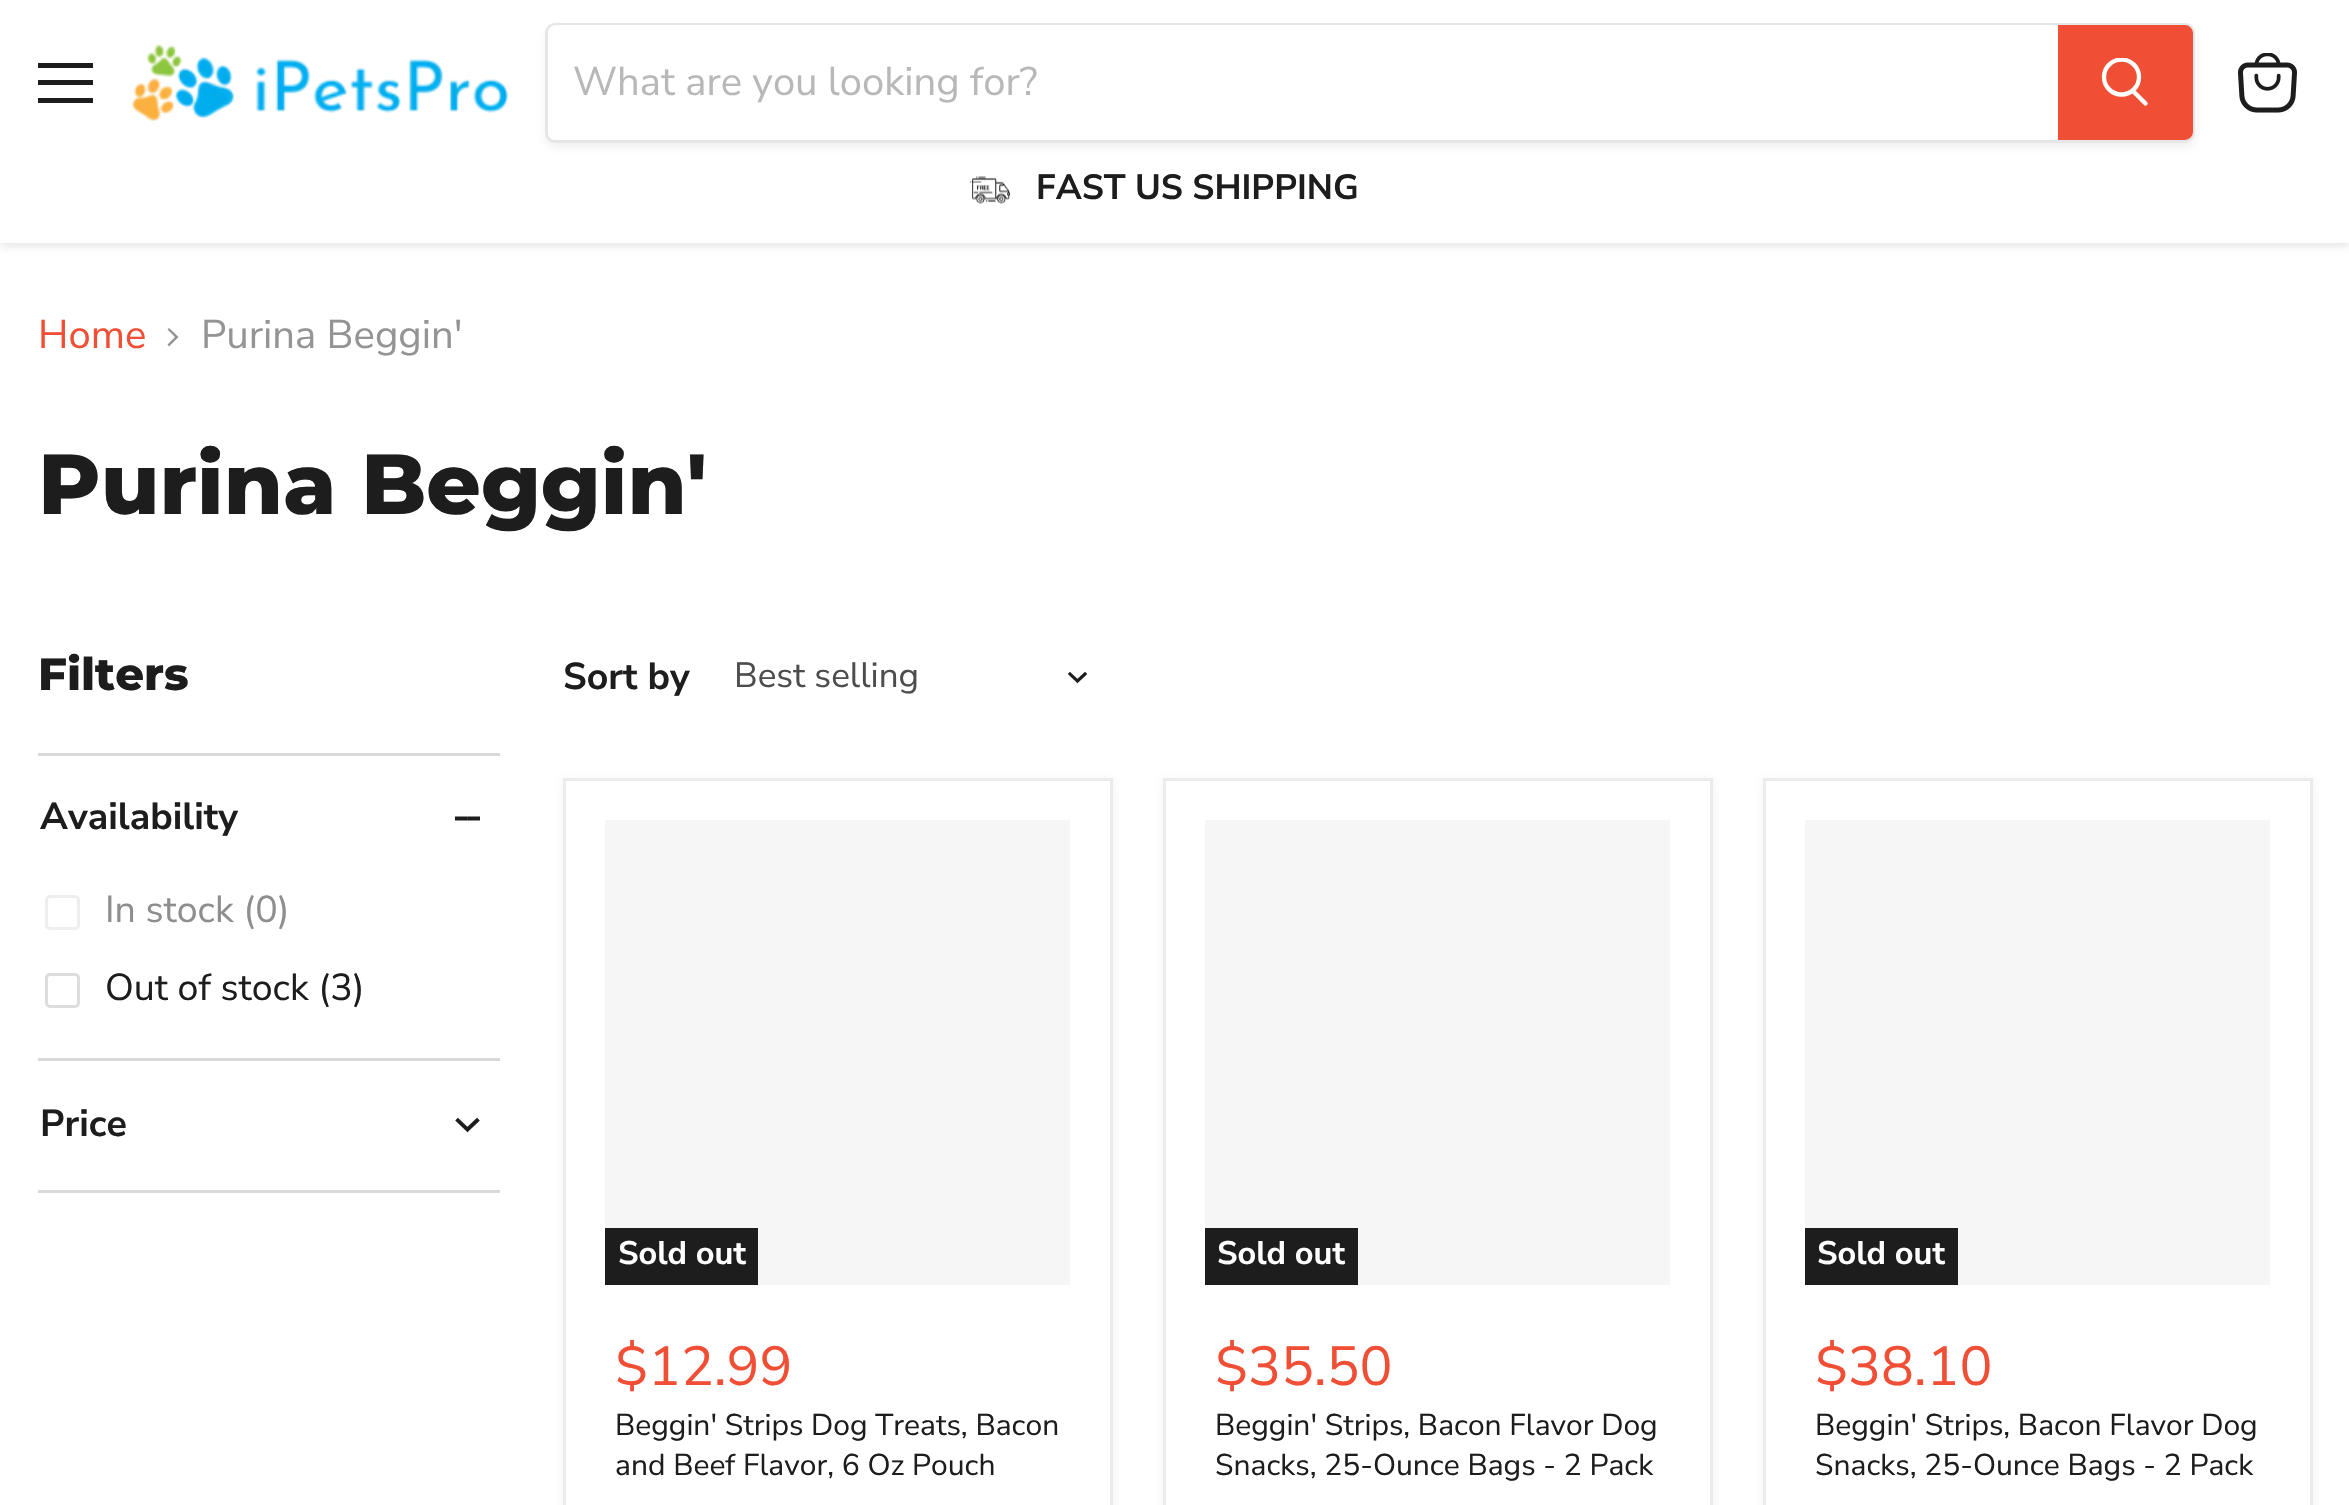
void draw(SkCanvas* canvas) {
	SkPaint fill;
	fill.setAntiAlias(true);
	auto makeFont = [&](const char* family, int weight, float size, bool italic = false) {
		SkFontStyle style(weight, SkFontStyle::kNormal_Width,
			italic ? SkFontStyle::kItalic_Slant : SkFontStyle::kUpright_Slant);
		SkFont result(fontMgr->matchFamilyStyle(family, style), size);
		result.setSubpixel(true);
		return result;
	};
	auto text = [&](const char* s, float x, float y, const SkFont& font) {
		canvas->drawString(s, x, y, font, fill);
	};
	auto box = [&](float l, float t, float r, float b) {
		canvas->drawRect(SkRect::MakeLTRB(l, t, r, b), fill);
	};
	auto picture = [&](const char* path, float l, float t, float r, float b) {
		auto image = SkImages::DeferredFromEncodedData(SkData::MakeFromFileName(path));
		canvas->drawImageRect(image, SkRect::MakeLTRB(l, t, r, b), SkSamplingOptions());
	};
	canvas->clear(0xFFFFFFFF);
	fill.setColor(0x40808080);
	fill.setMaskFilter(SkMaskFilter::MakeBlur(kNormal_SkBlurStyle, 5));
	canvas->drawRect(SkRect::MakeLTRB(0, 3, 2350, 245), fill);
	fill.setMaskFilter(nullptr);
	fill.setColor(0xFFFFFFFF);
	box(0, 0, 2349, 243);
	fill.setColor(0xFF1D1D1D);
	box(38, 63, 93, 68);
	box(38, 80, 93, 85);
	box(38, 98, 93, 103);
	picture("image0.png", 132, 44, 508, 122);
	canvas->save();
	canvas->clipPath(SkPathBuilder(SkPathFillType::kEvenOdd).moveTo(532, 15).lineTo(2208, 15).lineTo(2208, 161).lineTo(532, 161).close().moveTo(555, 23).lineTo(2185, 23).cubicTo(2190.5f, 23, 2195, 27.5f, 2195, 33).lineTo(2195, 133).cubicTo(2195, 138.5f, 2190.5f, 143, 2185, 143).lineTo(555, 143).cubicTo(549.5f, 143, 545, 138.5f, 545, 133).lineTo(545, 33).cubicTo(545, 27.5f, 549.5f, 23, 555, 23).close().detach(), true);
	fill.setColor(0x1C808080);
	fill.setMaskFilter(SkMaskFilter::MakeBlur(kNormal_SkBlurStyle, 4));
	canvas->drawRoundRect(SkRect::MakeLTRB(545, 28, 2195, 148), 10, 10, fill);
	fill.setMaskFilter(nullptr);
	canvas->restore();
	fill.setStyle(SkPaint::kStroke_Style);
	fill.setStrokeWidth(3);
	fill.setColor(0x33808080);
	canvas->drawRoundRect(SkRect::MakeLTRB(546.5f, 24.5f, 2193.5f, 141.5f), 8.5f, 8.5f, fill);
	fill.setStyle(SkPaint::kFill_Style);
	fill.setColor(0xFFFFFFFF);
	canvas->drawPath(SkPathBuilder().moveTo(556, 25).lineTo(2058, 25).lineTo(2058, 140).lineTo(556, 140).cubicTo(551.5f, 140, 548, 136.5f, 548, 132).lineTo(548, 33).cubicTo(548, 28.5f, 551.5f, 25, 556, 25).close().detach(), fill);
	fill.setColor(0xFFF04F36);
	canvas->drawPath(SkPathBuilder().moveTo(2059.5f, 26.5f).lineTo(2185, 26.5f).cubicTo(2188.5f, 26.5f, 2191.5f, 29.5f, 2191.5f, 33).lineTo(2191.5f, 132).cubicTo(2191.5f, 135.5f, 2188.5f, 138.5f, 2185, 138.5f).lineTo(2059.5f, 138.5f).close().detach(), fill);
	fill.setStyle(SkPaint::kStroke_Style);
	canvas->drawPath(SkPathBuilder().moveTo(2059.5f, 26.5f).lineTo(2185, 26.5f).cubicTo(2188.5f, 26.5f, 2191.5f, 29.5f, 2191.5f, 33).lineTo(2191.5f, 132).cubicTo(2191.5f, 135.5f, 2188.5f, 138.5f, 2185, 138.5f).lineTo(2059.5f, 138.5f).close().detach(), fill);
	fill.setStrokeWidth(4.3f);
	fill.setStrokeCap(SkPaint::kRound_Cap);
	fill.setColor(0xFFFFFFFF);
	canvas->drawPath(SkPathBuilder().moveTo(2145.5f, 103.5f).lineTo(2133.5f, 91.5f).detach(), fill);
	canvas->save();
	canvas->clipRect(SkRect::MakeLTRB(2100, 58, 2150, 110));
	fill.setStrokeCap(SkPaint::kButt_Cap);
	canvas->drawCircle(2121.5f, 77, 17.5f, fill);
	canvas->restore();
	picture("image1.png", 970, 176, 1010, 204);
	picture("image2.png", 2238, 53, 2297, 113);
	fill.setStyle(SkPaint::kFill_Style);
	fill.setColor(0xFF949494);
	canvas->drawPath(SkPathBuilder(SkPathFillType::kEvenOdd).moveTo(167.5f, 344.5f).lineTo(169, 346.5f).lineTo(178.5f, 337).lineTo(169, 328).lineTo(167.5f, 329.5f).lineTo(175, 337).close().detach(), fill);
	fill.setColor(0xFFD9D9D9);
	box(38, 753, 500, 756);
	canvas->save();
	canvas->clipRect(SkRect::MakeLTRB(455, 805, 480, 823));
	fill.setStyle(SkPaint::kStroke_Style);
	fill.setStrokeWidth(3.9f);
	fill.setStrokeCap(SkPaint::kSquare_Cap);
	fill.setColor(0xFF1D1D1D);
	canvas->drawPath(SkPathBuilder().moveTo(469.5f, 818.5f).lineTo(482.5f, 818.5f).moveTo(465.5f, 818.5f).lineTo(452.5f, 818.5f).detach(), fill);
	canvas->restore();
	fill.setStrokeWidth(3);
	fill.setStrokeCap(SkPaint::kButt_Cap);
	fill.setColor(0xFFEEEEEE);
	canvas->drawRoundRect(SkRect::MakeLTRB(46.5f, 896.5f, 78.5f, 928.5f), 3.5f, 3.5f, fill);
	fill.setColor(0xFFDDDDDD);
	canvas->drawRoundRect(SkRect::MakeLTRB(46.5f, 974.5f, 78.5f, 1006.5f), 3.5f, 3.5f, fill);
	fill.setStyle(SkPaint::kFill_Style);
	fill.setColor(0xFFD9D9D9);
	box(38, 1058, 500, 1061);
	box(38, 1190, 500, 1193);
	fill.setStyle(SkPaint::kStroke_Style);
	fill.setStrokeWidth(3.9f);
	fill.setStrokeCap(SkPaint::kSquare_Cap);
	fill.setColor(0xFF1D1D1D);
	canvas->drawPath(SkPathBuilder().moveTo(467.5f, 1129.5f).lineTo(477, 1120.5f).moveTo(467.5f, 1129.5f).lineTo(458, 1120.5f).detach(), fill);
	fill.setStrokeWidth(3.1f);
	canvas->drawPath(SkPathBuilder().moveTo(1077.5f, 681).lineTo(1085, 674).moveTo(1077.5f, 681).lineTo(1070, 674).detach(), fill);
	fill.setStyle(SkPaint::kFill_Style);
	fill.setColor(0x1C808080);
	fill.setMaskFilter(SkMaskFilter::MakeBlur(kNormal_SkBlurStyle, 5));
	canvas->drawRect(SkRect::MakeLTRB(563, 780, 1113, 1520), fill);
	fill.setMaskFilter(nullptr);
	fill.setColor(0xFFFFFFFF);
	canvas->drawRect(SkRect::MakeLTRB(564.5f, 779.5f, 1111.5f, 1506.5f), fill);
	fill.setStyle(SkPaint::kStroke_Style);
	fill.setStrokeWidth(3);
	fill.setStrokeCap(SkPaint::kButt_Cap);
	fill.setColor(0xFFEBEBEB);
	canvas->drawRect(SkRect::MakeLTRB(564.5f, 779.5f, 1111.5f, 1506.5f), fill);
	fill.setStyle(SkPaint::kFill_Style);
	fill.setColor(0xFFF6F6F6);
	box(605, 820, 1070, 1285);
	fill.setColor(0xFF1D1D1D);
	box(605, 1228, 758, 1285);
	fill.setColor(0x1C808080);
	fill.setMaskFilter(SkMaskFilter::MakeBlur(kNormal_SkBlurStyle, 5));
	canvas->drawRect(SkRect::MakeLTRB(1163, 780, 1713, 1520), fill);
	fill.setMaskFilter(nullptr);
	fill.setColor(0xFFFFFFFF);
	canvas->drawRect(SkRect::MakeLTRB(1164.5f, 779.5f, 1711.5f, 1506.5f), fill);
	fill.setStyle(SkPaint::kStroke_Style);
	fill.setColor(0xFFEBEBEB);
	canvas->drawRect(SkRect::MakeLTRB(1164.5f, 779.5f, 1711.5f, 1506.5f), fill);
	fill.setStyle(SkPaint::kFill_Style);
	fill.setColor(0xFFF6F6F6);
	box(1205, 820, 1670, 1285);
	fill.setColor(0xFF1D1D1D);
	box(1205, 1228, 1358, 1285);
	fill.setColor(0x1C808080);
	fill.setMaskFilter(SkMaskFilter::MakeBlur(kNormal_SkBlurStyle, 5));
	canvas->drawRect(SkRect::MakeLTRB(1763, 780, 2313, 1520), fill);
	fill.setMaskFilter(nullptr);
	fill.setColor(0xFFFFFFFF);
	canvas->drawRect(SkRect::MakeLTRB(1764.5f, 779.5f, 2311.5f, 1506.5f), fill);
	fill.setStyle(SkPaint::kStroke_Style);
	fill.setColor(0xFFEBEBEB);
	canvas->drawRect(SkRect::MakeLTRB(1764.5f, 779.5f, 2311.5f, 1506.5f), fill);
	fill.setStyle(SkPaint::kFill_Style);
	fill.setColor(0xFFF6F6F6);
	box(1805, 820, 2270, 1285);
	fill.setColor(0xFF1D1D1D);
	box(1805, 1228, 1958, 1285);
	auto font1 = makeFont("Nunito Sans", 400, 40);
	fill.setColor(0xFFB8B8B8);
	text("What are you looking for?", 573, 95, font1);
	auto font2 = makeFont("Nunito Sans", 700, 35);
	fill.setColor(0xFF1D1D1D);
	text("FAST US SHIPPING", 1036, 199, font2);
	fill.setColor(0xFFF04F36);
	text("Home", 38, 348, font1);
	fill.setColor(0xFF949494);
	text("Purina Beggin'", 201, 348, font1);
	auto font3 = makeFont("Montserrat", 800, 85);
	fill.setColor(0xFF1D1D1D);
	text("Purina Beggin'", 38, 514, font3);
	auto font4 = makeFont("Montserrat", 800, 45);
	text("Filters", 38, 690, font4);
	auto font5 = makeFont("Nunito Sans", 700, 37.5f);
	text("Availability", 40, 829, font5);
	auto font6 = makeFont("Nunito Sans", 400, 37.5f);
	fill.setColor(0xFF8E8E8E);
	text("In stock (0)", 105, 922, font6);
	fill.setColor(0xFF1D1D1D);
	text("Out of stock (3)", 105, 1000, font6);
	text("Price", 40, 1136, font5);
	text("Sort by", 563, 689, font5);
	auto font7 = makeFont("Nunito Sans", 400, 35);
	fill.setColor(0xFF4D4D4D);
	text("Best selling", 734, 687, font7);
	auto font8 = makeFont("Nunito Sans", 700, 32.5f);
	fill.setColor(0xFFFFFFFF);
	text("Sold out", 618, 1264, font8);
	auto font9 = makeFont("Nunito Sans", 400, 55);
	fill.setColor(0xFFF04F36);
	text("$12.99", 615, 1385, font9);
	auto font10 = makeFont("Nunito Sans", 400, 30);
	fill.setColor(0xFF1D1D1D);
	text("Beggin' Strips Dog Treats, Bacon", 615, 1435, font10);
	text("and Beef Flavor, 6 Oz Pouch", 615, 1475, font10);
	fill.setColor(0xFFFFFFFF);
	text("Sold out", 1217, 1264, font8);
	fill.setColor(0xFFF04F36);
	text("$35.50", 1215, 1385, font9);
	fill.setColor(0xFF1D1D1D);
	text("Beggin' Strips, Bacon Flavor Dog", 1215, 1435, font10);
	text("Snacks, 25-Ounce Bags - 2 Pack", 1215, 1475, font10);
	fill.setColor(0xFFFFFFFF);
	text("Sold out", 1817, 1264, font8);
	fill.setColor(0xFFF04F36);
	text("$38.10", 1815, 1385, font9);
	fill.setColor(0xFF1D1D1D);
	text("Beggin' Strips, Bacon Flavor Dog", 1815, 1435, font10);
	text("Snacks, 25-Ounce Bags - 2 Pack", 1815, 1475, font10);
}
